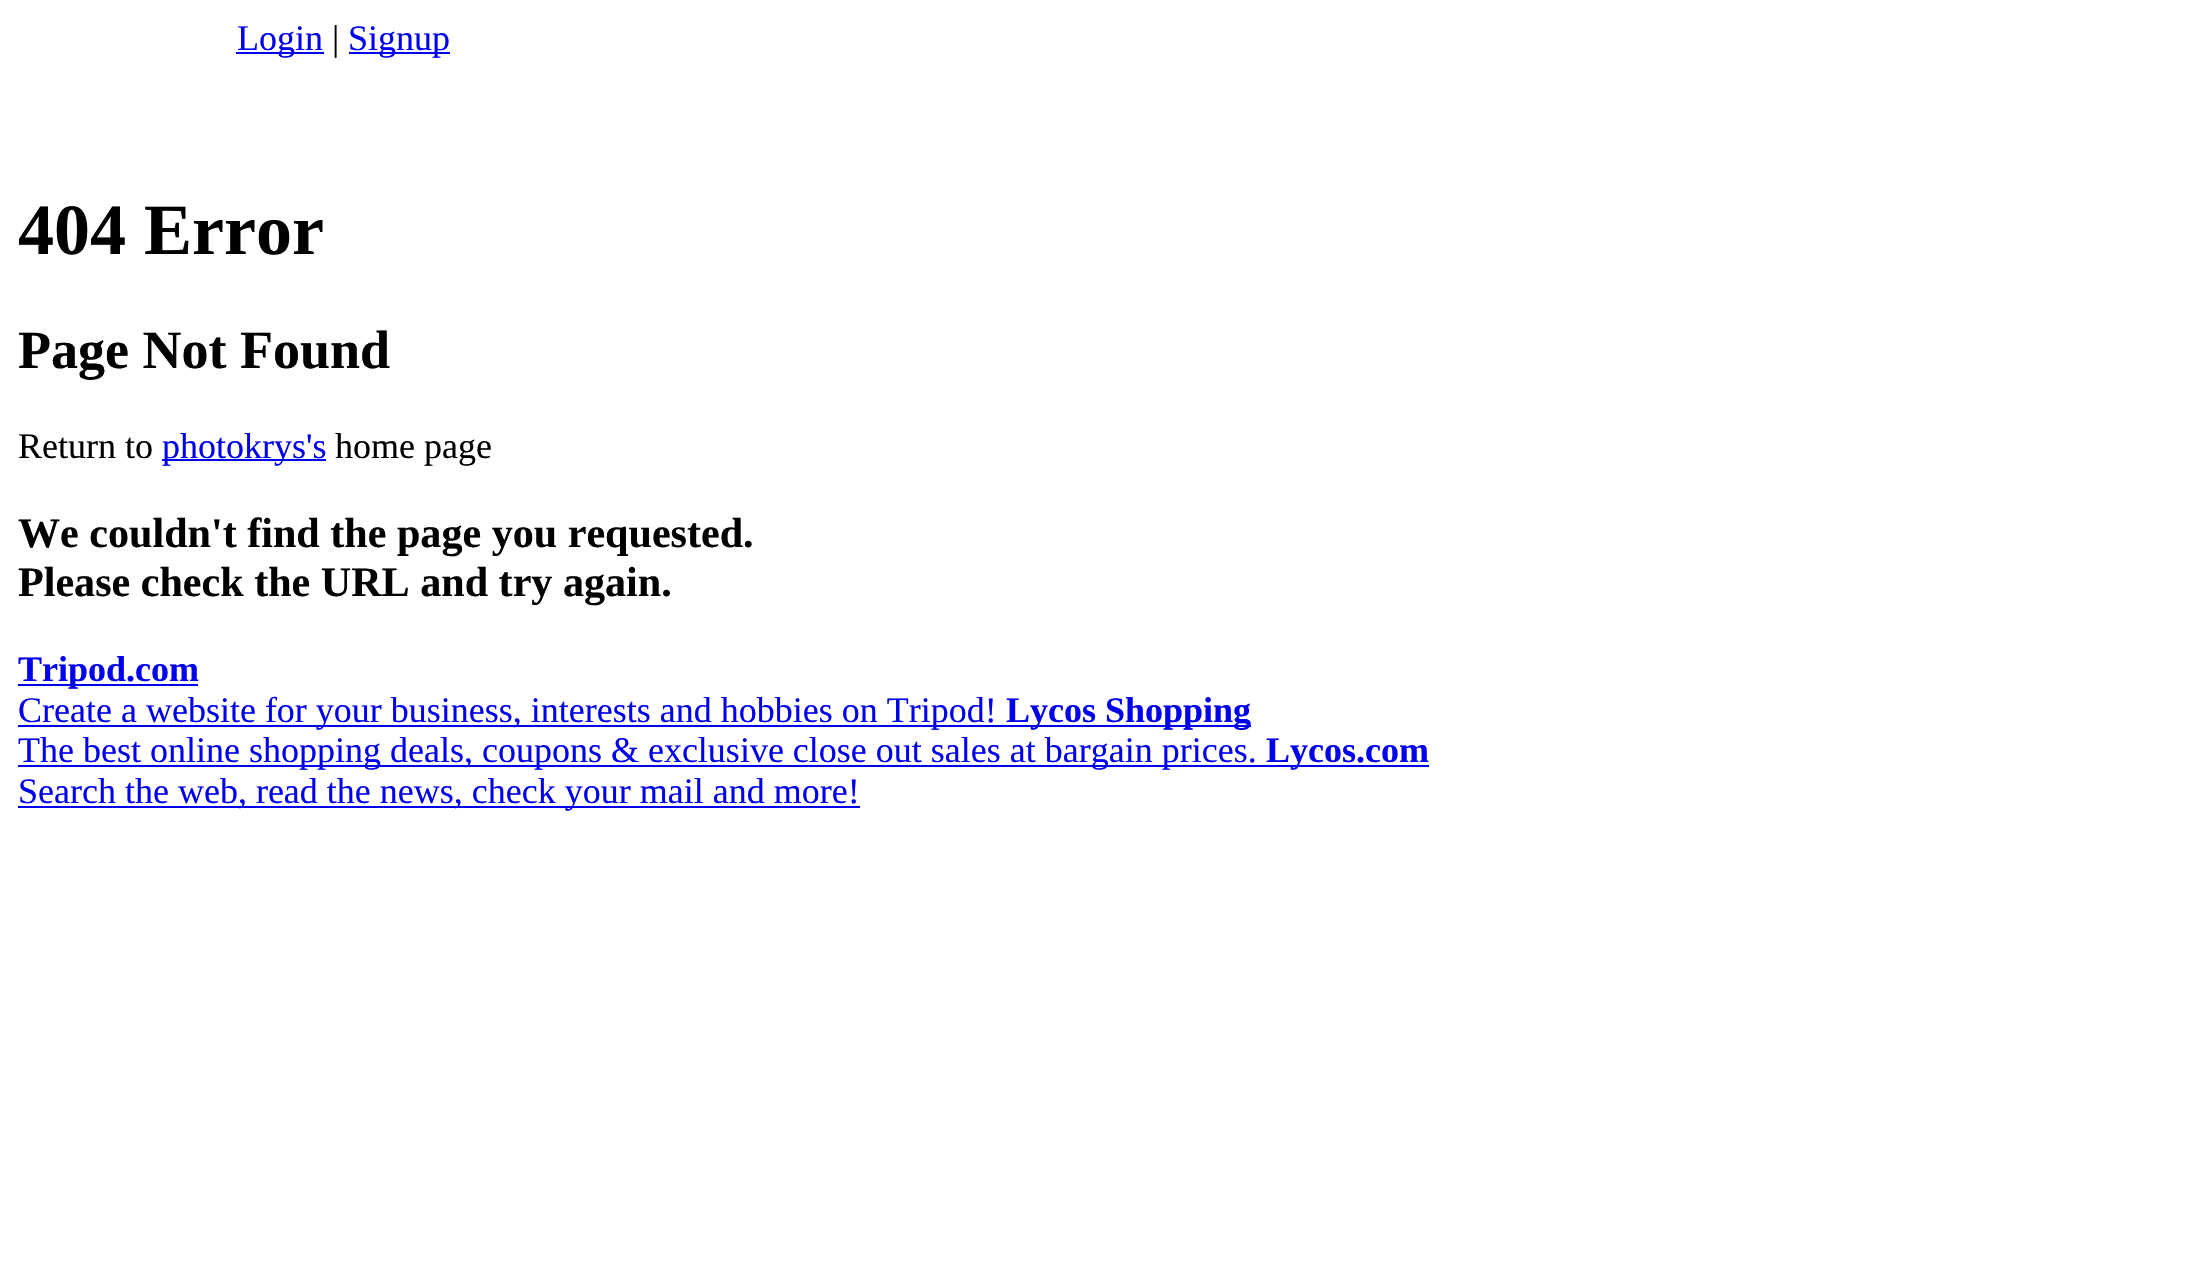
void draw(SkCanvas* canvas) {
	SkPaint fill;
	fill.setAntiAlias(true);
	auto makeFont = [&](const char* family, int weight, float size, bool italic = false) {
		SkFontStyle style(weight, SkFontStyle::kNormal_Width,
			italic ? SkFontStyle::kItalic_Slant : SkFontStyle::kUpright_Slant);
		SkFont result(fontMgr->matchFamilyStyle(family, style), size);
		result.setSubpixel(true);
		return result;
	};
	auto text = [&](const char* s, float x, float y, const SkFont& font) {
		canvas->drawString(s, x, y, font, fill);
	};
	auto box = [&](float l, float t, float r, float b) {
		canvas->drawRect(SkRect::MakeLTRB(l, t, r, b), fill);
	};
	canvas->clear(0xFFFFFFFF);
	fill.setColor(0xFF0000EE);
	box(236, 52, 324, 54);
	box(349, 52, 450, 54);
	box(162, 459, 326, 461);
	box(18, 684, 198, 686);
	box(18, 725, 1251, 727);
	box(18, 765, 1429, 767);
	box(18, 806, 860, 808);
	auto font1 = makeFont("Liberation Serif", 400, 36);
	text("Login", 237, 50, font1);
	fill.setColor(0xFF000000);
	text("|", 332, 50, font1);
	fill.setColor(0xFF0000EE);
	text("Signup", 348, 50, font1);
	auto font2 = makeFont("Liberation Serif", 700, 72);
	fill.setColor(0xFF000000);
	text("404 Error", 18, 254, font2);
	auto font3 = makeFont("Liberation Serif", 700, 54);
	text("Page Not Found", 18, 368, font3);
	text("Return to", 18, 458, font1);
	fill.setColor(0xFF0000EE);
	text("photokrys's", 162, 458, font1);
	fill.setColor(0xFF000000);
	text("home page", 335, 458, font1);
	auto font4 = makeFont("Liberation Serif", 700, 42.1f);
	text("We couldn't find the page you requested.", 18, 547, font4);
	text("Please check the URL and try again.", 18, 596, font4);
	auto font5 = makeFont("Liberation Serif", 700, 36);
	fill.setColor(0xFF0000EE);
	text("Tripod.com", 18, 681, font5);
	text("Create a website for your business, interests and hobbies on Tripod!", 18, 722, font1);
	text("Lycos Shopping", 1006, 722, font5);
	text("The best online shopping deals, coupons & exclusive close out sales at bargain prices.", 18, 762, font1);
	text("Lycos.com", 1266, 762, font5);
	text("Search the web, read the news, check your mail and more!", 18, 803, font1);
}
